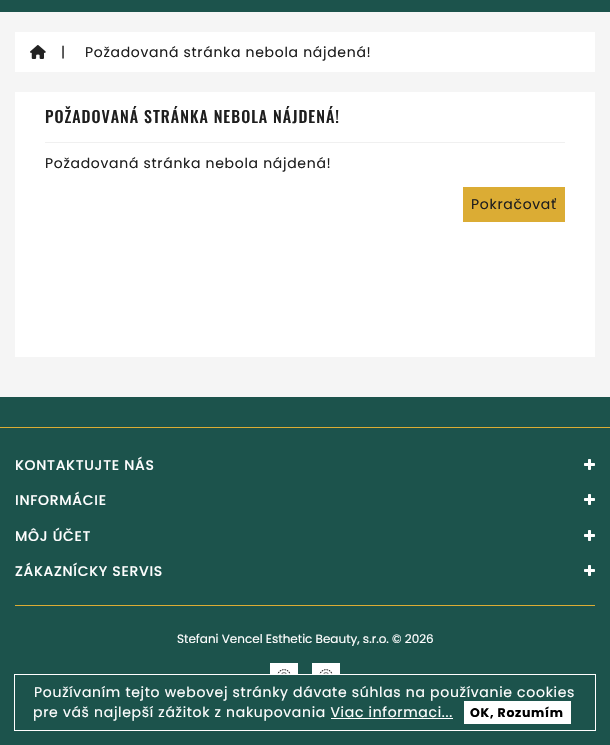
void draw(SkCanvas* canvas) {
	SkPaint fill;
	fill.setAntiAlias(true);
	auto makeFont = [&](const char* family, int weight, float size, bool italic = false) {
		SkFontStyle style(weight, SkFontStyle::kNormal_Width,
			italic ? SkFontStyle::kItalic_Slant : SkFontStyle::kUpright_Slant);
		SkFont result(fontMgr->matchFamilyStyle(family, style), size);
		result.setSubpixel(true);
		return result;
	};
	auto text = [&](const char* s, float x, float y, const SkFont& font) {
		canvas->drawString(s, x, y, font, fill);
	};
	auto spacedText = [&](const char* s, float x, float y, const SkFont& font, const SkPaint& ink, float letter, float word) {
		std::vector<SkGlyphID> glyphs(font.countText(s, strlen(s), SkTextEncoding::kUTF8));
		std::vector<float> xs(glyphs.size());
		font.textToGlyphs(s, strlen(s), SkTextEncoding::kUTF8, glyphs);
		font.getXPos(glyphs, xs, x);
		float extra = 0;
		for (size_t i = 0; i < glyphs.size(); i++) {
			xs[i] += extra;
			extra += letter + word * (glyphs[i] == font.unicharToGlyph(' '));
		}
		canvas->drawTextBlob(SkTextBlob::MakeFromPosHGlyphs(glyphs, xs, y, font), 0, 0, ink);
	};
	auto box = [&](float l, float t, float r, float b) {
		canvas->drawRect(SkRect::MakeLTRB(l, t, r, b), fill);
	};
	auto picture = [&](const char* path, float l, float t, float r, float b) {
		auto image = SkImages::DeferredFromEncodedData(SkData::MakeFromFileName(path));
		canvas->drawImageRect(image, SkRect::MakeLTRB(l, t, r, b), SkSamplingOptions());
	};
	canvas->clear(0xFFF5F5F5);
	fill.setColor(0xFF1C534C);
	box(0, 0, 610, 12);
	fill.setColor(0xFFFFFFFF);
	box(15, 32, 595, 72);
	picture("image0.png", 30, 45, 46, 59);
	box(15, 92, 595, 357);
	fill.setColor(0xFFF0F0F0);
	box(45, 142, 565, 143);
	fill.setColor(0xFFDBAC34);
	box(463, 187, 565, 222);
	fill.setColor(0xFF1C534C);
	box(0, 397, 610, 745);
	fill.setStyle(SkPaint::kStroke_Style);
	fill.setStrokeWidth(1);
	fill.setColor(0xFFFFFFFF);
	canvas->drawRect(SkRect::MakeLTRB(14.5f, 674.5f, 595.5f, 730.5f), fill);
	fill.setStyle(SkPaint::kFill_Style);
	box(464, 701, 571, 724);
	box(331, 718, 453, 719);
	fill.setColor(0xFFDBAC34);
	box(0, 427, 610, 428);
	picture("image1.png", 584, 459, 595, 470);
	picture("image1.png", 584, 494, 595, 505);
	picture("image1.png", 584, 530, 595, 541);
	picture("image1.png", 584, 565, 595, 576);
	box(15, 605, 595, 606);
	fill.setColor(0xFFFFFFFF);
	box(270, 663, 298, 674);
	picture("image2.png", 277, 669, 291, 674);
	box(312, 663, 340, 674);
	picture("image2.png", 319, 669, 333, 674);
	auto font1 = makeFont("Poppins", 400, 14);
	fill.setColor(0xFF1E1E1E);
	spacedText("|", 61, 57, font1, fill, 0.7f, 0);
	spacedText("Požadovaná stránka nebola nájdená!", 85, 57, font1, fill, 0.7f, 0);
	auto font2 = makeFont("Oswald", 500, 16);
	spacedText("POŽADOVANÁ STRÁNKA NEBOLA NÁJDENÁ!", 45, 123, font2, fill, 1, 0);
	spacedText("Požadovaná stránka nebola nájdená!", 45, 168, font1, fill, 0.7f, 0);
	spacedText("Pokračovať", 471, 209, font1, fill, 0.7f, 0);
	fill.setColor(0xFFFFFFFF);
	spacedText("Používaním tejto webovej stránky dávate súhlas na používanie cookies", 34, 697, font1, fill, 0.7f, 0);
	spacedText("pre váš najlepší zážitok z nakupovania Viac informaci...", 33, 717, font1, fill, 0.7f, 0);
	auto font3 = makeFont("Poppins", 700, 12.5f);
	fill.setColor(0xFF000000);
	spacedText("OK, Rozumím", 470, 717, font3, fill, 0.7f, 0);
	auto font4 = makeFont("Poppins", 500, 14);
	fill.setColor(0xFFFFFFFF);
	spacedText("KONTAKTUJTE NÁS", 15, 470, font4, fill, 0.7f, 0);
	spacedText("INFORMÁCIE", 15, 505, font4, fill, 0.7f, 0);
	spacedText("MÔJ ÚČET", 15, 541, font4, fill, 0.7f, 0);
	spacedText("ZÁKAZNÍCKY SERVIS", 15, 576, font4, fill, 0.7f, 0);
	auto font5 = makeFont("Poppins", 400, 12);
	text("Stefani Vencel Esthetic Beauty, s.r.o. © 2026", 177, 643, font5);
}
